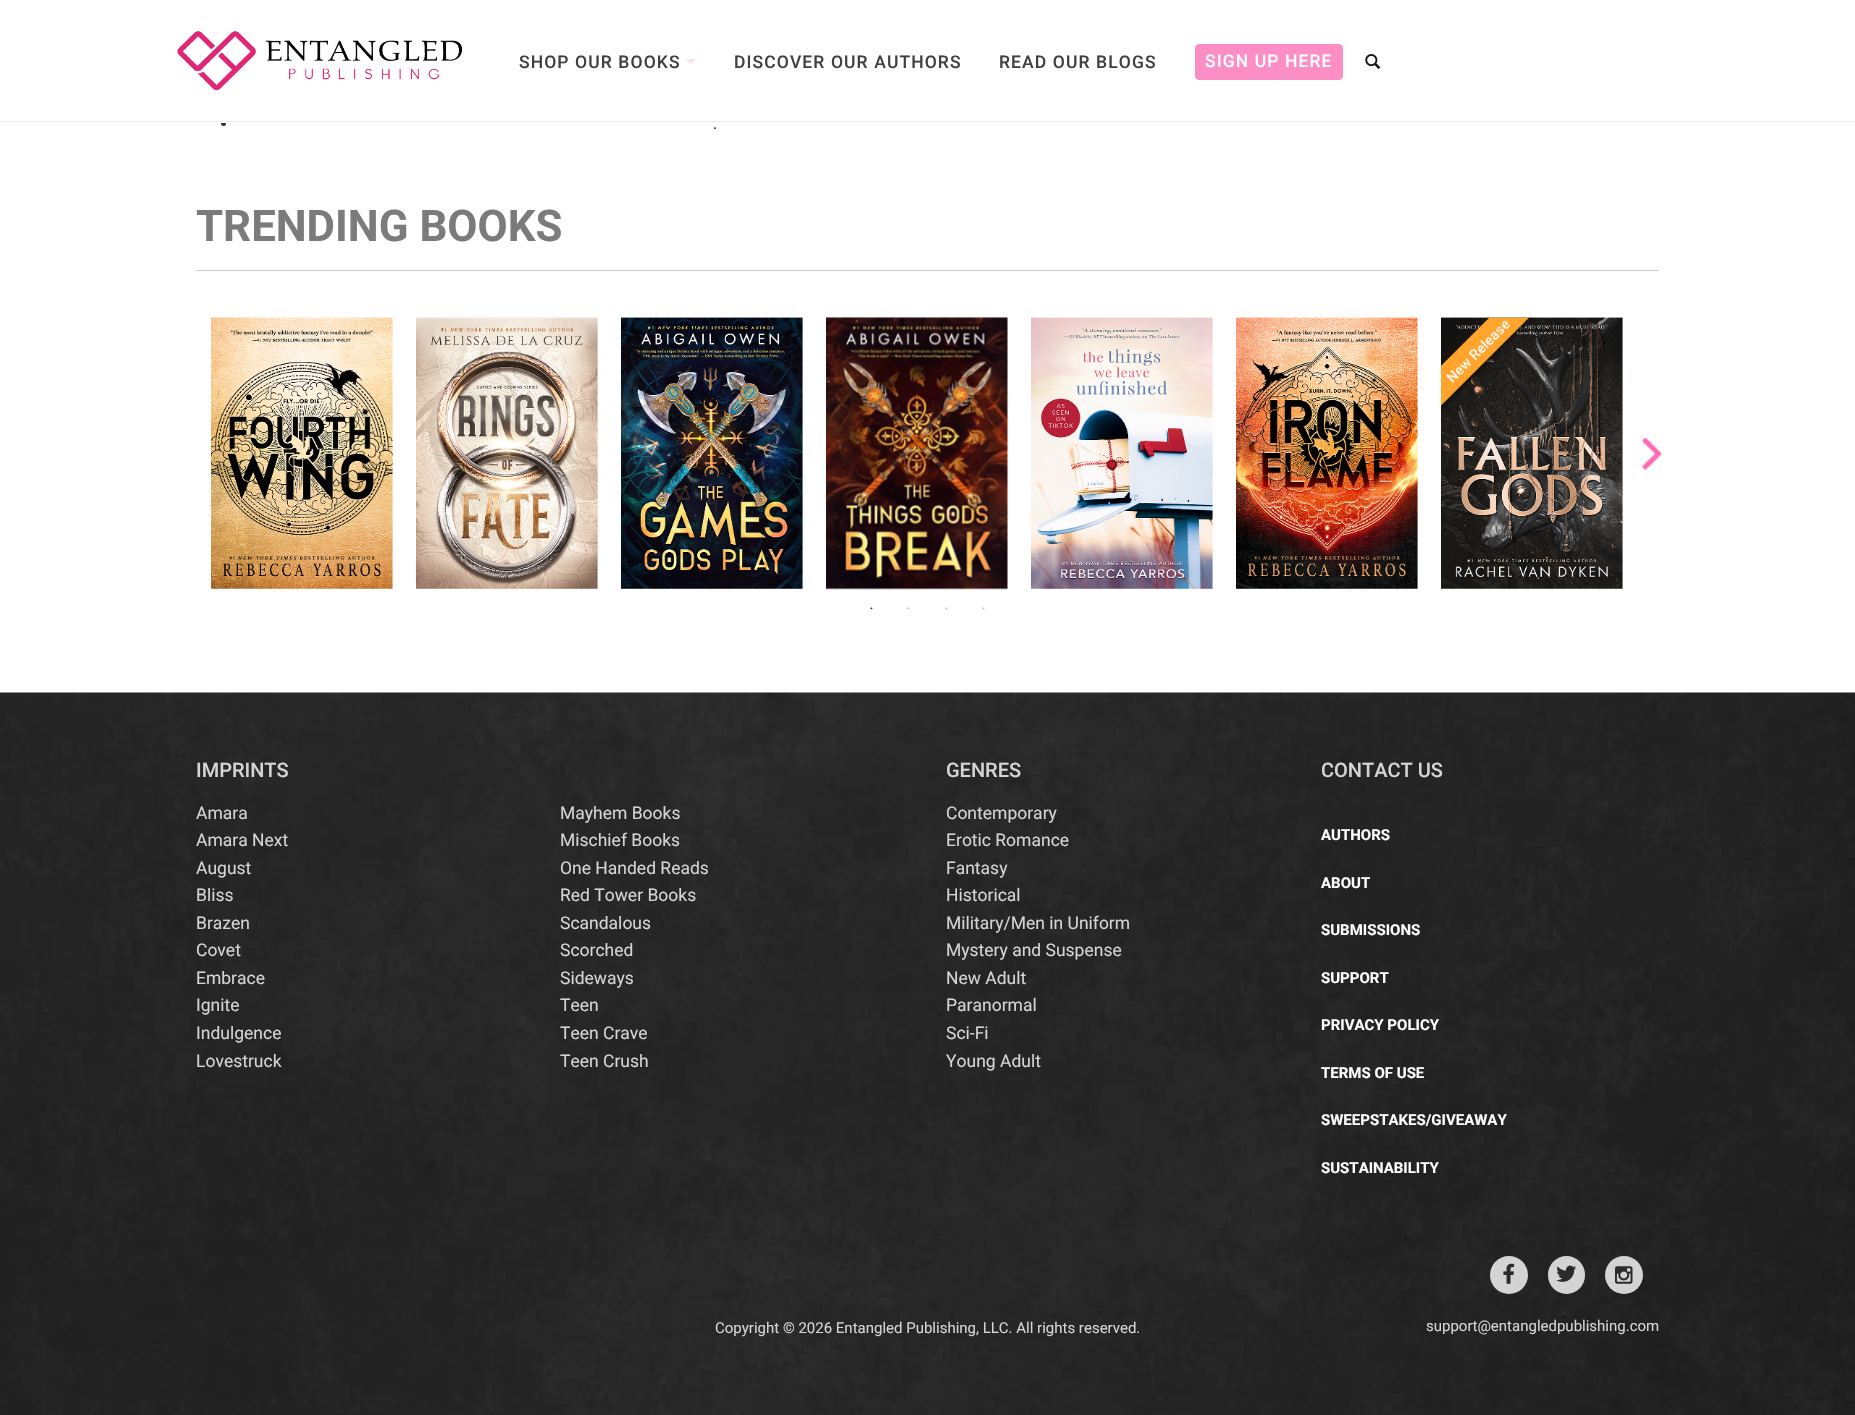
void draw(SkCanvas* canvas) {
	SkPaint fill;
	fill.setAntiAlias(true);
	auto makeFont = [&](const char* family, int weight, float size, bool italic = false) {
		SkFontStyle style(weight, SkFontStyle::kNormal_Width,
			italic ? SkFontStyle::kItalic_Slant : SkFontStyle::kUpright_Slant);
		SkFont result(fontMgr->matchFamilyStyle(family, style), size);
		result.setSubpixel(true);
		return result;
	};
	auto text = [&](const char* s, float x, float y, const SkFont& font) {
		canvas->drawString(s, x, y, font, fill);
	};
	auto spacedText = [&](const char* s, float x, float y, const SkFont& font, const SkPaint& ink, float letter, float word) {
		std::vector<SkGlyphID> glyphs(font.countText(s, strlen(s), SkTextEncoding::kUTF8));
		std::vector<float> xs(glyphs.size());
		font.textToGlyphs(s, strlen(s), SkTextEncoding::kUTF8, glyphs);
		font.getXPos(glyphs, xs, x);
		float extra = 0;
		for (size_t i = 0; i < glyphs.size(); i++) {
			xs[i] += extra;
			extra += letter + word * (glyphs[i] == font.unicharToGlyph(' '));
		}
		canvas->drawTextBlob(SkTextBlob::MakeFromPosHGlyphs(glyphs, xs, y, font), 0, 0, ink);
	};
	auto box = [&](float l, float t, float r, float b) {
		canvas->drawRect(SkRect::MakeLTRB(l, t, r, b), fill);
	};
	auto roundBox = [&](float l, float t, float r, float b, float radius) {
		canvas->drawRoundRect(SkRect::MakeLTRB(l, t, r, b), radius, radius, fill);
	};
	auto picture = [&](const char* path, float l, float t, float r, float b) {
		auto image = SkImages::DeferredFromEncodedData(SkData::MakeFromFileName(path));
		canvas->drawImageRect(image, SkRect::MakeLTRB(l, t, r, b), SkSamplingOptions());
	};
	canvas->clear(0xFFFFFFFF);
	fill.setColor(0xFF333333);
	canvas->drawCircle(223.5f, 123.5f, 2.5f, fill);
	fill.setColor(0xFFFFFFFF);
	box(221, 121, 226, 123);
	fill.setColor(0xFFEEEEEE);
	box(0, 121, 1855, 122);
	picture("image0.png", 177, 31, 462, 91);
	fill.setColor(0xFFFEDDEE);
	canvas->drawPath(SkPathBuilder().moveTo(686, 59).lineTo(696, 59).lineTo(691, 64).close().detach(), fill);
	fill.setColor(0xFFFD8DC5);
	canvas->drawRoundRect(SkRect::MakeLTRB(1195.5f, 44.5f, 1342.5f, 79.5f), 3.5f, 3.5f, fill);
	fill.setStyle(SkPaint::kStroke_Style);
	fill.setStrokeWidth(1);
	canvas->drawRoundRect(SkRect::MakeLTRB(1195.5f, 44.5f, 1342.5f, 79.5f), 3.5f, 3.5f, fill);
	picture("image1.png", 1365, 54, 1381, 69);
	fill.setStyle(SkPaint::kFill_Style);
	fill.setColor(0xFFC6CDD0);
	box(196, 270, 1659, 271);
	picture("image2.png", 211, 317, 393, 589);
	picture("image3.png", 416, 317, 598, 589);
	picture("image4.png", 621, 317, 803, 589);
	picture("image5.png", 826, 317, 1008, 590);
	picture("image6.png", 1031, 317, 1213, 589);
	picture("image7.png", 1236, 317, 1418, 589);
	picture("image8.png", 1441, 317, 1623, 589);
	picture("image9.png", 1441, 317, 1536, 410);
	picture("image10.png", 1642, 438, 1662, 470);
	picture("image11.png", 0, 692, 1855, 1415);
	fill.setColor(0xCCFFFFFF);
	canvas->drawCircle(1509, 1275, 19, fill);
	picture("image12.png", 1503, 1263, 1515, 1284);
	roundBox(1548, 1256, 1585, 1294, 18.5f);
	picture("image13.png", 1556, 1265, 1577, 1282);
	canvas->drawCircle(1624, 1275, 19, fill);
	picture("image14.png", 1615, 1266, 1633, 1284);
	auto font1 = makeFont("Roboto", 500, 17.5f);
	fill.setColor(0xFF404040);
	spacedText("SHOP OUR BOOKS", 519, 68, font1, fill, 1.1f, 0);
	spacedText("DISCOVER OUR AUTHORS", 734, 68, font1, fill, 1.1f, 0);
	spacedText("READ OUR BLOGS", 999, 68, font1, fill, 1.1f, 0);
	fill.setColor(0xFFFFFFFF);
	spacedText("SIGN UP HERE", 1205, 67, font1, fill, 1.1f, 0);
	auto font2 = makeFont("Roboto", 400, 16);
	fill.setColor(0xFF333333);
	text(".", 713, 129, font2);
	auto font3 = makeFont("Roboto", 700, 43.75f);
	fill.setColor(0xFF7B7B7B);
	text("TRENDING BOOKS", 196, 241, font3);
	auto font4 = makeFont("Liberation Serif", 400, 8);
	fill.setColor(0xFF404040);
	text("•", 870, 611, font4);
	fill.setColor(0xFFBFBFBF);
	text("•", 907, 611, font4);
	text("•", 945, 611, font4);
	text("•", 982, 611, font4);
	auto font5 = makeFont("Roboto", 500, 20);
	fill.setColor(0xFFD4D4D4);
	text("IMPRINTS", 196, 777, font5);
	auto font6 = makeFont("Roboto", 400, 17.5f);
	text("Amara", 196, 819, font6);
	text("Mayhem Books", 560, 819, font6);
	text("Amara Next", 196, 846, font6);
	text("Mischief Books", 560, 846, font6);
	text("August", 196, 874, font6);
	text("One Handed Reads", 560, 874, font6);
	text("Bliss", 196, 901, font6);
	text("Red Tower Books", 560, 901, font6);
	text("Brazen", 196, 929, font6);
	text("Scandalous", 560, 929, font6);
	text("Covet", 196, 956, font6);
	text("Scorched", 560, 956, font6);
	text("Embrace", 196, 984, font6);
	text("Sideways", 560, 984, font6);
	text("Ignite", 196, 1011, font6);
	text("Teen", 560, 1011, font6);
	text("Indulgence", 196, 1039, font6);
	text("Teen Crave", 560, 1039, font6);
	text("Lovestruck", 196, 1067, font6);
	text("Teen Crush", 560, 1067, font6);
	text("GENRES", 946, 777, font5);
	text("Contemporary", 946, 819, font6);
	text("Erotic Romance", 946, 846, font6);
	text("Fantasy", 946, 874, font6);
	text("Historical", 946, 901, font6);
	text("Military/Men in Uniform", 946, 929, font6);
	text("Mystery and Suspense", 946, 956, font6);
	text("New Adult", 946, 984, font6);
	text("Paranormal", 946, 1011, font6);
	text("Sci-Fi", 946, 1039, font6);
	text("Young Adult", 946, 1067, font6);
	text("CONTACT US", 1321, 777, font5);
	auto font7 = makeFont("Roboto", 700, 15);
	fill.setColor(0xFFFFFFFF);
	text("AUTHORS", 1321, 840, font7);
	text("ABOUT", 1321, 888, font7);
	text("SUBMISSIONS", 1321, 935, font7);
	text("SUPPORT", 1321, 983, font7);
	text("PRIVACY POLICY", 1321, 1030, font7);
	text("TERMS OF USE", 1321, 1078, font7);
	text("SWEEPSTAKES/GIVEAWAY", 1321, 1125, font7);
	text("SUSTAINABILITY", 1321, 1173, font7);
	auto font8 = makeFont("Roboto", 400, 15);
	fill.setColor(0xFFD4D4D4);
	text("Copyright © 2026 Entangled Publishing, LLC. All rights reserved.", 715, 1333, font8);
	text("support@entangledpublishing.com", 1426, 1331, font8);
}
